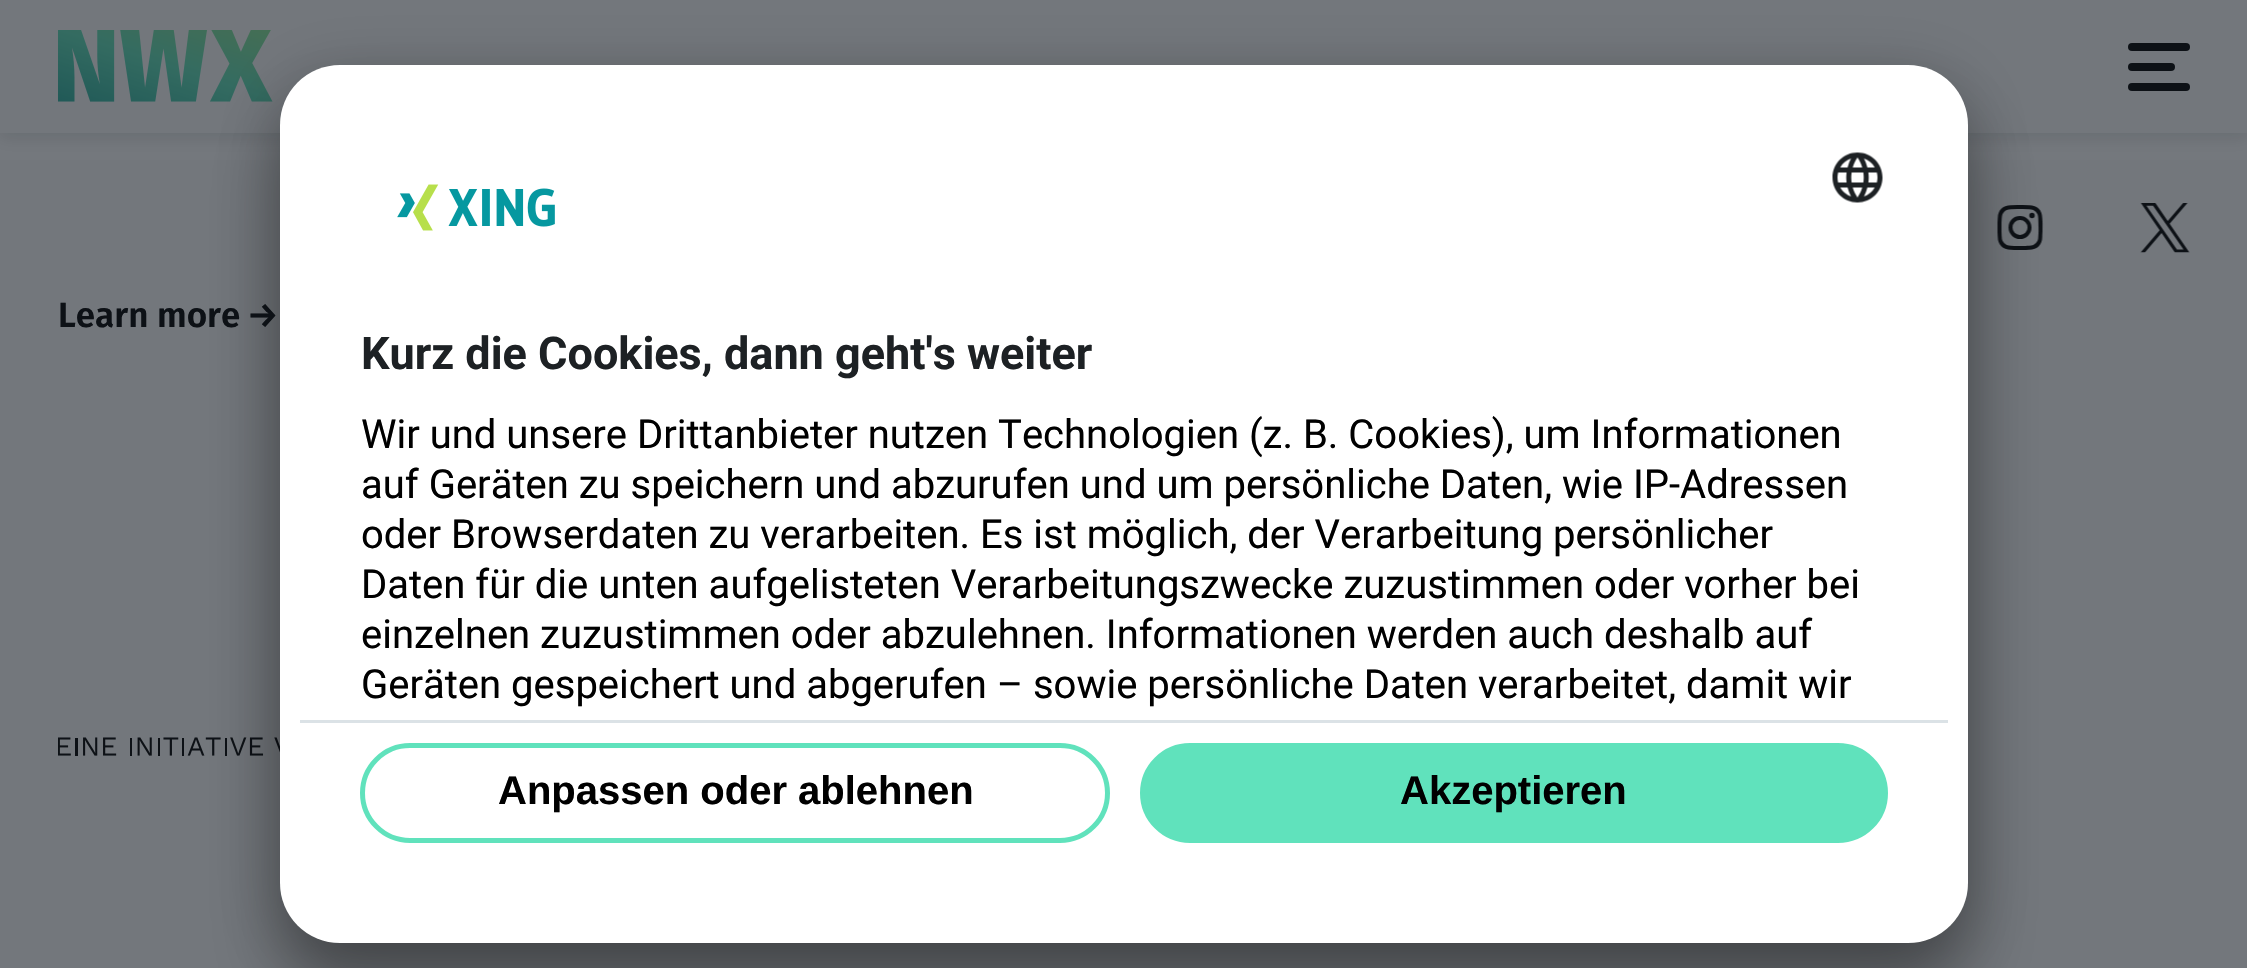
void draw(SkCanvas* canvas) {
	SkPaint fill;
	fill.setAntiAlias(true);
	auto makeFont = [&](const char* family, int weight, float size, bool italic = false) {
		SkFontStyle style(weight, SkFontStyle::kNormal_Width,
			italic ? SkFontStyle::kItalic_Slant : SkFontStyle::kUpright_Slant);
		SkFont result(fontMgr->matchFamilyStyle(family, style), size);
		result.setSubpixel(true);
		return result;
	};
	auto text = [&](const char* s, float x, float y, const SkFont& font) {
		canvas->drawString(s, x, y, font, fill);
	};
	auto box = [&](float l, float t, float r, float b) {
		canvas->drawRect(SkRect::MakeLTRB(l, t, r, b), fill);
	};
	auto roundBox = [&](float l, float t, float r, float b, float radius) {
		canvas->drawRoundRect(SkRect::MakeLTRB(l, t, r, b), radius, radius, fill);
	};
	auto picture = [&](const char* path, float l, float t, float r, float b) {
		auto image = SkImages::DeferredFromEncodedData(SkData::MakeFromFileName(path));
		canvas->drawImageRect(image, SkRect::MakeLTRB(l, t, r, b), SkSamplingOptions());
	};
	canvas->clear(0xFF73777C);
	fill.setColor(0x1A0D1116);
	fill.setMaskFilter(SkMaskFilter::MakeBlur(kNormal_SkBlurStyle, 7.5f));
	canvas->drawRect(SkRect::MakeLTRB(0, 5, 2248, 138), fill);
	fill.setMaskFilter(nullptr);
	fill.setColor(0xFF73777C);
	box(0, 0, 2247, 133);
	picture("image0.png", 58, 30, 273, 102);
	fill.setColor(0xFF0D1116);
	roundBox(2128, 43, 2190, 51, 4);
	roundBox(2128, 63, 2175, 71, 4);
	roundBox(2128, 83, 2190, 91, 4);
	picture("image1.png", 1997, 205, 2044, 250);
	picture("image2.png", 2140, 203, 2190, 253);
	picture("image3.png", 58, 737, 280, 756);
	fill.setColor(0x4D000000);
	fill.setMaskFilter(SkMaskFilter::MakeBlur(kNormal_SkBlurStyle, 35));
	canvas->drawRoundRect(SkRect::MakeLTRB(280, 115, 1968, 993), 60, 60, fill);
	fill.setMaskFilter(nullptr);
	fill.setColor(0x38000000);
	fill.setMaskFilter(SkMaskFilter::MakeBlur(kNormal_SkBlurStyle, 32.5f));
	canvas->drawRoundRect(SkRect::MakeLTRB(280, 78, 1968, 955), 60, 60, fill);
	fill.setMaskFilter(nullptr);
	fill.setColor(0xFFFFFFFF);
	roundBox(280, 65, 1968, 943, 60);
	picture("image4.png", 397, 184, 555, 231);
	picture("image5.png", 1832, 152, 1883, 203);
	fill.setColor(0xFFDBE2E6);
	box(300, 720, 1948, 723);
	fill.setStyle(SkPaint::kStroke_Style);
	fill.setStrokeWidth(5);
	fill.setColor(0xFF60E2BC);
	canvas->drawRoundRect(SkRect::MakeLTRB(362.5f, 745.5f, 1107.5f, 840.5f), 47.5f, 47.5f, fill);
	fill.setStyle(SkPaint::kFill_Style);
	canvas->drawRoundRect(SkRect::MakeLTRB(1141.5f, 744.5f, 1886.5f, 841.5f), 48.5f, 48.5f, fill);
	fill.setStyle(SkPaint::kStroke_Style);
	fill.setStrokeWidth(3);
	canvas->drawRoundRect(SkRect::MakeLTRB(1141.5f, 744.5f, 1886.5f, 841.5f), 48.5f, 48.5f, fill);
	auto font1 = makeFont("Fira Sans", 600, 35);
	fill.setStyle(SkPaint::kFill_Style);
	fill.setColor(0xFF0D1116);
	text("Learn more", 58, 327, font1);
	text("→", 247, 327, font1);
	auto font2 = makeFont("Roboto", 700, 45);
	fill.setColor(0xFF1D2124);
	text("Kurz die Cookies, dann geht's weiter", 361, 369, font2);
	auto font3 = makeFont("Roboto", 400, 40);
	fill.setColor(0xFF000000);
	text("Wir und unsere Drittanbieter nutzen Technologien (z. B. Cookies), um Informationen", 361, 448, font3);
	text("auf Geräten zu speichern und abzurufen und um persönliche Daten, wie IP-Adressen", 361, 498, font3);
	text("oder Browserdaten zu verarbeiten. Es ist möglich, der Verarbeitung persönlicher", 361, 548, font3);
	text("Daten für die unten aufgelisteten Verarbeitungszwecke zuzustimmen oder vorher bei", 361, 598, font3);
	text("einzelnen zuzustimmen oder abzulehnen. Informationen werden auch deshalb auf", 361, 648, font3);
	text("Geräten gespeichert und abgerufen – sowie persönliche Daten verarbeitet, damit wir", 361, 698, font3);
	auto font4 = makeFont("Liberation Sans", 700, 40);
	text("Anpassen oder ablehnen", 498, 804, font4);
	text("Akzeptieren", 1400, 804, font4);
}
